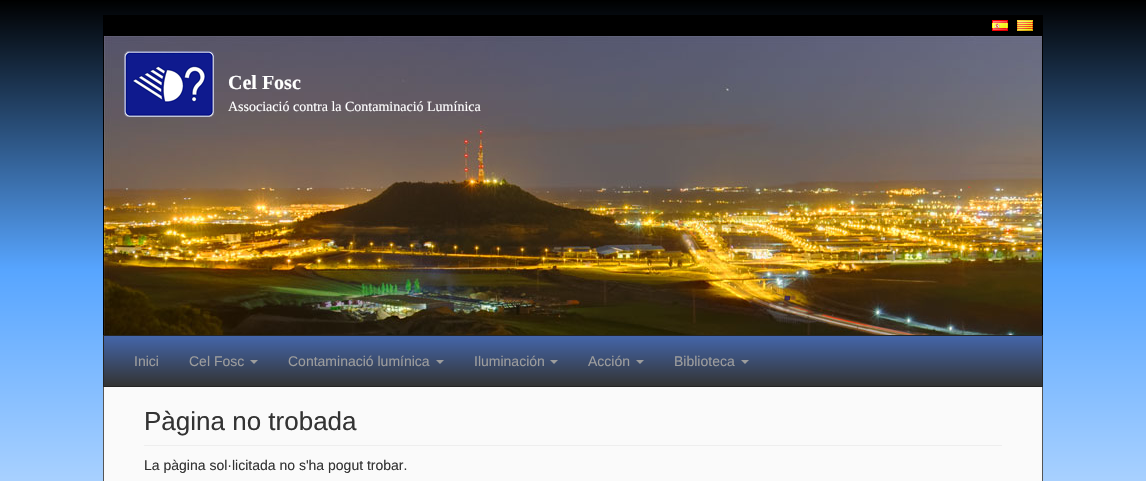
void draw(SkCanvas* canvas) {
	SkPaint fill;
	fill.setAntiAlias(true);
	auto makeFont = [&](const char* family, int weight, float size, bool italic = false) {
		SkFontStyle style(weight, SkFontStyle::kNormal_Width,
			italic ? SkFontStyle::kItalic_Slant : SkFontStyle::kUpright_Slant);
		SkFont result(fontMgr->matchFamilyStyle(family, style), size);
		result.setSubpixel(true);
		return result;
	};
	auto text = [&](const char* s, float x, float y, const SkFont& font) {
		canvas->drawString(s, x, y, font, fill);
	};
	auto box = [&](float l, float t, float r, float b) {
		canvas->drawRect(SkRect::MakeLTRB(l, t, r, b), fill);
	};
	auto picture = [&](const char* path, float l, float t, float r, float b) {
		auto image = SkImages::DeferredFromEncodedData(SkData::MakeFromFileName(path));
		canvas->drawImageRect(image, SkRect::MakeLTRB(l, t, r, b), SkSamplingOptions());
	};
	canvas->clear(0xFFFFFFFF);
	{
		const SkColor colors[] = {0xFF000000, 0xFF57A5FF, 0xFFDBECFF};
		const float stops[] = {0, 0.44f, 1};
		const SkPoint ends[] = {{573, 0}, {573, 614}};
		fill.setShader(SkGradientShader::MakeLinear(ends, colors, stops, 3, SkTileMode::kClamp));
		fill.setAlpha(255);
	}
	box(0, 0, 1146, 481);
	fill.setShader(nullptr);
	fill.setColor(0xFF000000);
	box(103, 15, 1043, 36);
	picture("image0.png", 992, 20, 1008, 31);
	picture("image1.png", 1017, 20, 1033, 31);
	picture("image2.png", 104, 36, 1042, 335);
	box(1042, 35, 1043, 335);
	box(103, 35, 104, 335);
	picture("image3.png", 124, 51, 214, 117);
	{
		const SkColor colors[] = {0xFF4466AA, 0xFF333333};
		const float stops[] = {0, 1};
		const SkPoint ends[] = {{573, 336}, {573, 386}};
		fill.setShader(SkGradientShader::MakeLinear(ends, colors, stops, 2, SkTileMode::kClamp));
		fill.setAlpha(255);
	}
	box(104, 336, 1042, 386);
	fill.setStyle(SkPaint::kStroke_Style);
	fill.setStrokeWidth(1);
	fill.setShader(nullptr);
	fill.setColor(0xFF252525);
	canvas->drawRect(SkRect::MakeLTRB(103.5f, 335.5f, 1042.5f, 386.5f), fill);
	fill.setStyle(SkPaint::kFill_Style);
	fill.setColor(0xFF9D9D9D);
	canvas->drawPath(SkPathBuilder().moveTo(250, 360).lineTo(258, 360).lineTo(254, 364).close().detach(), fill);
	canvas->drawPath(SkPathBuilder().moveTo(436, 360).lineTo(444, 360).lineTo(440, 364).close().detach(), fill);
	canvas->drawPath(SkPathBuilder().moveTo(550, 360).lineTo(558, 360).lineTo(554, 364).close().detach(), fill);
	canvas->drawPath(SkPathBuilder().moveTo(636, 360).lineTo(644, 360).lineTo(640, 364).close().detach(), fill);
	canvas->drawPath(SkPathBuilder().moveTo(741, 360).lineTo(749, 360).lineTo(745, 364).close().detach(), fill);
	fill.setColor(0xFFFAFAFA);
	box(104, 387, 1042, 481);
	fill.setColor(0xFF555555);
	box(1042, 387, 1043, 481);
	box(103, 387, 104, 481);
	fill.setColor(0xFFEEEEEE);
	box(144, 445, 1002, 446);
	auto font1 = makeFont("Liberation Serif", 700, 20);
	fill.setColor(0xFFFFFFFF);
	text("Cel Fosc", 228, 89, font1);
	auto font2 = makeFont("Liberation Serif", 400, 14);
	text("Associació contra la Contaminació Lumínica", 228, 111, font2);
	auto font3 = makeFont("Liberation Sans", 400, 14);
	fill.setColor(0xFF9D9D9D);
	text("Inici", 134, 366, font3);
	text("Cel Fosc", 189, 366, font3);
	text("Contaminació lumínica", 288, 366, font3);
	text("Iluminación", 474, 366, font3);
	text("Acción", 588, 366, font3);
	text("Biblioteca", 674, 366, font3);
	auto font4 = makeFont("Liberation Sans", 400, 26);
	fill.setColor(0xFF333333);
	text("Pàgina no trobada", 144, 430, font4);
	text("La pàgina sol·licitada no s'ha pogut trobar.", 144, 470, font3);
}
